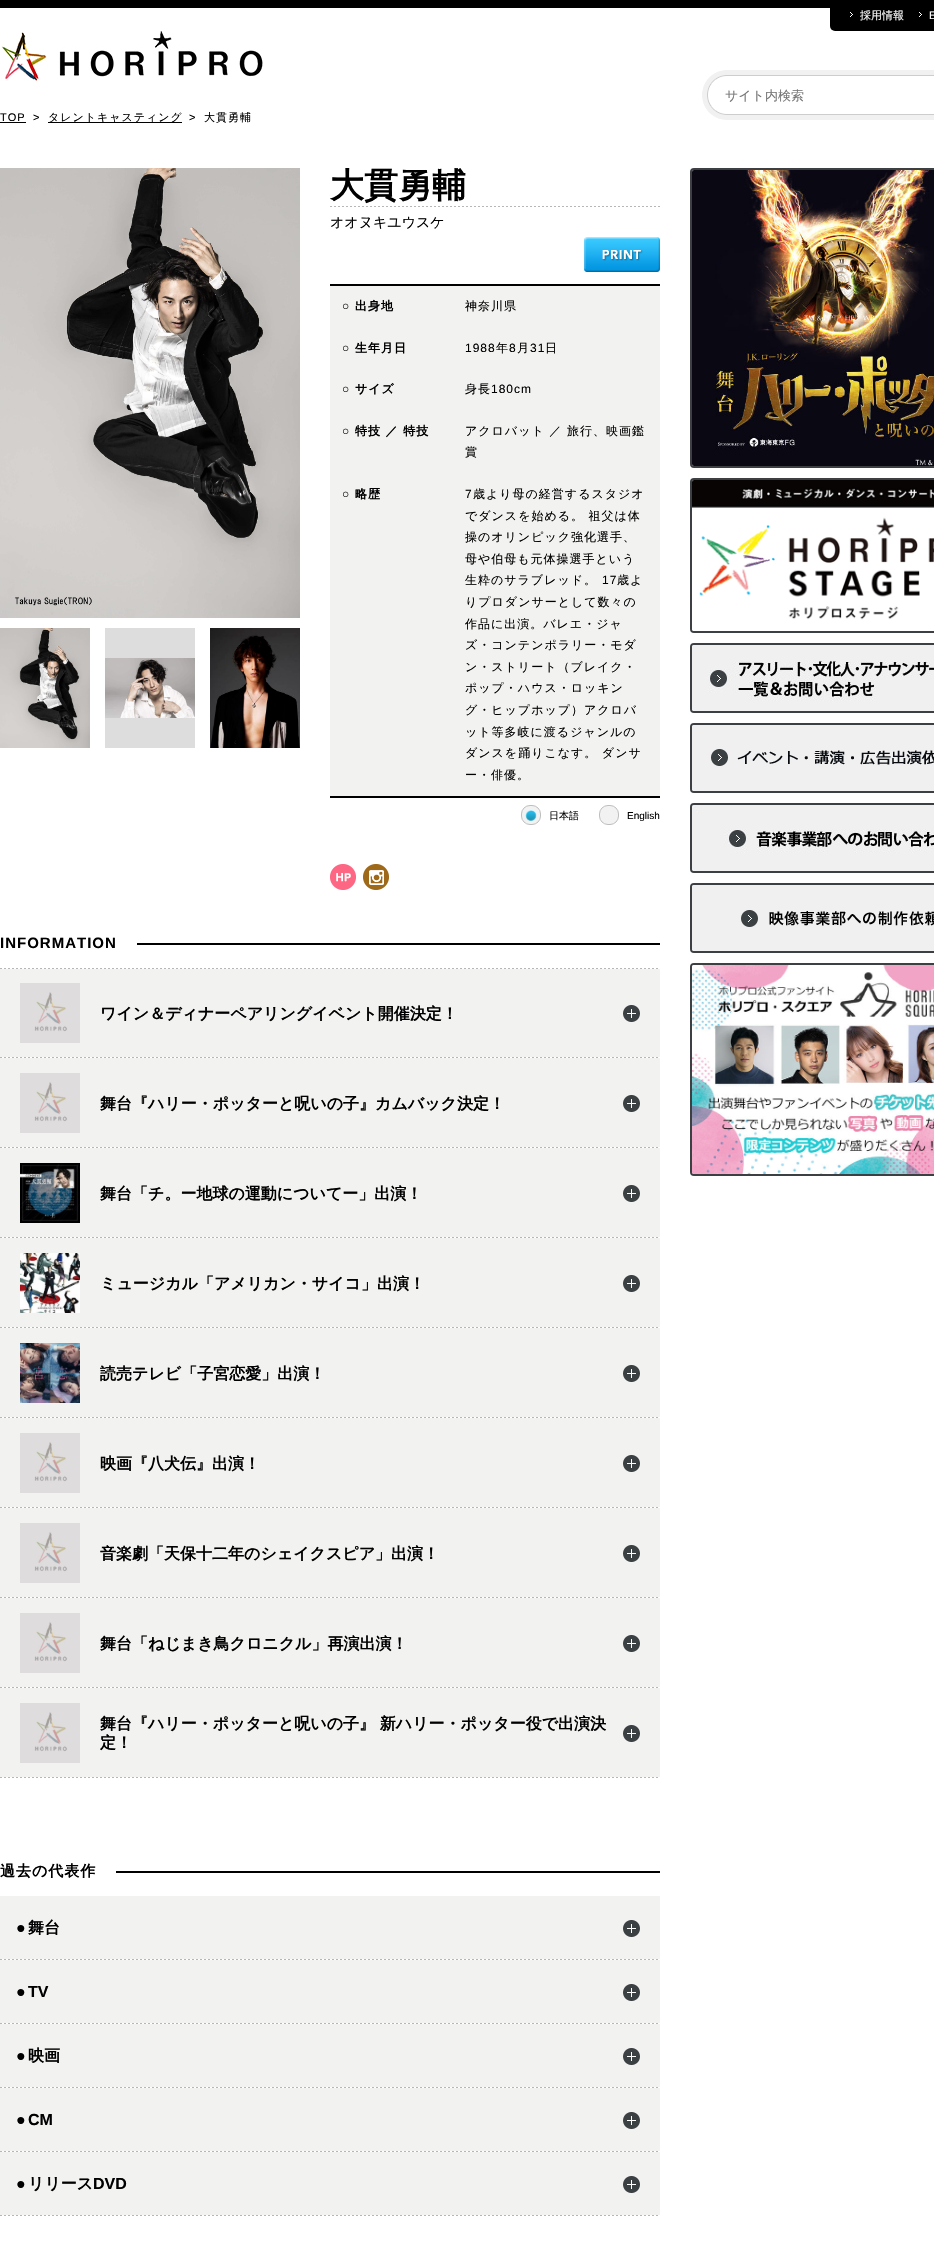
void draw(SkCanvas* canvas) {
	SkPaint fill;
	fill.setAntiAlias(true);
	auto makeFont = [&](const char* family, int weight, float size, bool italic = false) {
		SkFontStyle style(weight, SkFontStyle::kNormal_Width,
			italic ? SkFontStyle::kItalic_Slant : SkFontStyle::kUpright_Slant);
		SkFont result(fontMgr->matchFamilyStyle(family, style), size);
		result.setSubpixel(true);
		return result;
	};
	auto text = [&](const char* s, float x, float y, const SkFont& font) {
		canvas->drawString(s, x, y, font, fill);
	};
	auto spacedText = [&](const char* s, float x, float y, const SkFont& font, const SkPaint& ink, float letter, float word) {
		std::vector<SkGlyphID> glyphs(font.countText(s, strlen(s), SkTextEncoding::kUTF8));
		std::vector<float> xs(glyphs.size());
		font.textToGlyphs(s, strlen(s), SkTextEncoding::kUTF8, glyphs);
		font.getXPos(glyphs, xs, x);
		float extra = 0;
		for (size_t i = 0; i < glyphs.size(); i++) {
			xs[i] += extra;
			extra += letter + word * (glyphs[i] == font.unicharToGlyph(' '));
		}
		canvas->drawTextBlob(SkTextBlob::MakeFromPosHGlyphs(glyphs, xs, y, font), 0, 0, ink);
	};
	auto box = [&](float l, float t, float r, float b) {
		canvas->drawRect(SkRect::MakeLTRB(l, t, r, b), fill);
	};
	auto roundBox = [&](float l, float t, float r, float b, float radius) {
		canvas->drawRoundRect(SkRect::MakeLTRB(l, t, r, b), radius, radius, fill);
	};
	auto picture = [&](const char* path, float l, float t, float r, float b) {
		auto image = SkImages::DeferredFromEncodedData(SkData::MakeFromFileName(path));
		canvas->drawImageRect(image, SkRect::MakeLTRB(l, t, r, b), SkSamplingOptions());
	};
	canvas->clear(0xFFFFFFFF);
	fill.setColor(0xFF000000);
	box(0, 0, 934, 8);
	roundBox(830, 3, 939, 31, 5);
	picture("image0.png", 850, 12, 853, 17);
	picture("image0.png", 919, 12, 922, 17);
	picture("image1.png", 702, 70, 934, 120);
	picture("image2.png", 1, 31, 263, 81);
	box(0, 122, 26, 123);
	box(48, 122, 182, 123);
	picture("image3.png", 0, 168, 300, 618);
	picture("image4.png", 0, 628, 90, 748);
	fill.setColor(0xFFDDDDDD);
	box(105, 628, 195, 748);
	picture("image5.png", 105, 658, 195, 718);
	picture("image6.png", 210, 628, 300, 748);
	picture("image7.png", 330, 206, 660, 207);
	picture("image8.png", 584, 237, 660, 272);
	fill.setColor(0xFFF2F2F1);
	box(330, 286, 660, 796);
	fill.setColor(0xFF000000);
	box(330, 284, 660, 286);
	box(330, 796, 660, 798);
	fill.setColor(0xFFF2F2F2);
	canvas->drawRoundRect(SkRect::MakeLTRB(521.5f, 805.5f, 540.5f, 824.5f), 8.5f, 8.5f, fill);
	fill.setStyle(SkPaint::kStroke_Style);
	fill.setStrokeWidth(1);
	fill.setColor(0xFFBEBEBE);
	canvas->drawRoundRect(SkRect::MakeLTRB(521.5f, 805.5f, 540.5f, 824.5f), 8.5f, 8.5f, fill);
	picture("image9.png", 525, 810, 537, 822);
	fill.setStyle(SkPaint::kFill_Style);
	fill.setColor(0xFFF2F2F2);
	canvas->drawRoundRect(SkRect::MakeLTRB(599.5f, 805.5f, 618.5f, 824.5f), 8.5f, 8.5f, fill);
	fill.setStyle(SkPaint::kStroke_Style);
	fill.setColor(0xFFBEBEBE);
	canvas->drawRoundRect(SkRect::MakeLTRB(599.5f, 805.5f, 618.5f, 824.5f), 8.5f, 8.5f, fill);
	picture("image10.png", 330, 864, 356, 890);
	picture("image11.png", 363, 864, 389, 890);
	fill.setStyle(SkPaint::kFill_Style);
	fill.setColor(0xFF000000);
	box(137, 943, 660, 945);
	fill.setColor(0xFFF2F2F1);
	box(0, 969, 660, 1777);
	picture("image12.png", 0, 968, 660, 969);
	picture("image12.png", 0, 1057, 660, 1058);
	picture("image13.png", 623, 1005, 640, 1022);
	picture("image14.png", 20, 983, 80, 1043);
	picture("image12.png", 0, 1147, 660, 1148);
	picture("image13.png", 623, 1095, 640, 1112);
	picture("image14.png", 20, 1073, 80, 1133);
	picture("image12.png", 0, 1237, 660, 1238);
	picture("image13.png", 623, 1185, 640, 1202);
	picture("image15.png", 20, 1163, 80, 1223);
	picture("image12.png", 0, 1327, 660, 1328);
	picture("image13.png", 623, 1275, 640, 1292);
	picture("image16.png", 20, 1253, 80, 1313);
	picture("image12.png", 0, 1417, 660, 1418);
	picture("image13.png", 623, 1365, 640, 1382);
	picture("image17.png", 20, 1343, 80, 1403);
	picture("image12.png", 0, 1507, 660, 1508);
	picture("image13.png", 623, 1455, 640, 1472);
	picture("image14.png", 20, 1433, 80, 1493);
	picture("image12.png", 0, 1597, 660, 1598);
	picture("image13.png", 623, 1545, 640, 1562);
	picture("image14.png", 20, 1523, 80, 1583);
	picture("image12.png", 0, 1687, 660, 1688);
	picture("image13.png", 623, 1635, 640, 1652);
	picture("image14.png", 20, 1613, 80, 1673);
	picture("image12.png", 0, 1777, 660, 1778);
	picture("image13.png", 623, 1725, 640, 1742);
	picture("image14.png", 20, 1703, 80, 1763);
	fill.setColor(0xFF000000);
	box(116, 1871, 660, 1873);
	fill.setColor(0xFFF2F2F1);
	box(0, 1896, 660, 2215);
	picture("image12.png", 0, 1959, 660, 1960);
	picture("image13.png", 623, 1920, 640, 1937);
	picture("image12.png", 0, 2023, 660, 2024);
	picture("image13.png", 623, 1984, 640, 2001);
	picture("image12.png", 0, 2087, 660, 2088);
	picture("image13.png", 623, 2048, 640, 2065);
	picture("image12.png", 0, 2151, 660, 2152);
	picture("image13.png", 623, 2112, 640, 2129);
	picture("image12.png", 0, 2215, 660, 2216);
	picture("image13.png", 623, 2176, 640, 2193);
	fill.setStyle(SkPaint::kStroke_Style);
	fill.setStrokeWidth(2);
	fill.setColor(0xFF3C4043);
	canvas->drawRoundRect(SkRect::MakeLTRB(691, 169, 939, 467), 3, 3, fill);
	picture("image18.png", 692, 170, 934, 466);
	canvas->drawRoundRect(SkRect::MakeLTRB(691, 479, 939, 632), 3, 3, fill);
	picture("image19.png", 692, 480, 934, 631);
	canvas->drawRoundRect(SkRect::MakeLTRB(691, 644, 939, 712), 3, 3, fill);
	picture("image20.png", 692, 645, 934, 711);
	canvas->drawRoundRect(SkRect::MakeLTRB(691, 724, 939, 792), 3, 3, fill);
	picture("image21.png", 692, 725, 934, 791);
	canvas->drawRoundRect(SkRect::MakeLTRB(691, 804, 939, 872), 3, 3, fill);
	picture("image22.png", 692, 805, 934, 871);
	canvas->drawRoundRect(SkRect::MakeLTRB(691, 884, 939, 952), 3, 3, fill);
	picture("image23.png", 692, 885, 934, 951);
	canvas->drawRoundRect(SkRect::MakeLTRB(691, 964, 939, 1175), 3, 3, fill);
	picture("image24.png", 692, 965, 934, 1174);
	auto font1 = makeFont("WenQuanYi Zen Hei", 500, 11);
	fill.setStyle(SkPaint::kFill_Style);
	fill.setColor(0xFFFFFFFF);
	text("採用情報", 860, 19, font1);
	auto font2 = makeFont("Liberation Sans", 400, 11);
	text("E", 929, 19, font2);
	auto font3 = makeFont("WenQuanYi Zen Hei", 500, 13);
	fill.setColor(0xFF757575);
	text("サイト内検索", 725, 100, font3);
	fill.setColor(0xFF000000);
	spacedText("TOP", 0, 121, font2, fill, 1, 0);
	spacedText(">", 33, 121, font2, fill, 1, 0);
	spacedText("タレントキャスティング", 48, 121, font1, fill, 1, 0);
	spacedText(">", 189, 121, font2, fill, 1, 0);
	spacedText("大貫勇輔", 204, 121, font1, fill, 1, 0);
	auto font4 = makeFont("WenQuanYi Zen Hei", 700, 34);
	text("大貫勇輔", 330, 197, font4);
	auto font5 = makeFont("WenQuanYi Zen Hei", 500, 14);
	text("オオヌキユウスケ", 330, 227, font5);
	auto font6 = makeFont("Liberation Sans", 700, 12);
	spacedText("○", 342, 310, font6, fill, 1, 0);
	auto font7 = makeFont("WenQuanYi Zen Hei", 700, 12);
	spacedText("出身地", 355, 310, font7, fill, 1, 0);
	auto font8 = makeFont("WenQuanYi Zen Hei", 500, 12);
	spacedText("神奈川県", 465, 310, font8, fill, 1, 0);
	spacedText("○", 342, 352, font6, fill, 1, 0);
	spacedText("生年月日", 355, 352, font7, fill, 1, 0);
	auto font9 = makeFont("Liberation Sans", 400, 12);
	spacedText("1988", 465, 352, font9, fill, 1, 0);
	spacedText("年", 496, 352, font8, fill, 1, 0);
	spacedText("8", 509, 352, font9, fill, 1, 0);
	spacedText("月", 517, 352, font8, fill, 1, 0);
	spacedText("31", 530, 352, font9, fill, 1, 0);
	spacedText("日", 545, 352, font8, fill, 1, 0);
	spacedText("○", 342, 393, font6, fill, 1, 0);
	spacedText("サイズ", 355, 393, font7, fill, 1, 0);
	spacedText("身長", 465, 393, font8, fill, 1, 0);
	spacedText("180cm", 491, 393, font9, fill, 1, 0);
	spacedText("○", 342, 435, font6, fill, 1, 0);
	spacedText("特技 ／ 特技", 355, 435, font7, fill, 1, 0);
	spacedText("アクロバット ／ 旅行、映画鑑", 465, 435, font8, fill, 1, 0);
	spacedText("賞", 465, 456, font8, fill, 1, 0);
	spacedText("○", 342, 498, font6, fill, 1, 0);
	spacedText("略歴", 355, 498, font7, fill, 1, 0);
	spacedText("7", 465, 498, font9, fill, 1, 0);
	spacedText("歳より母の経営するスタジオ", 473, 498, font8, fill, 1, 0);
	spacedText("でダンスを始める。 祖父は体", 465, 520, font8, fill, 1, 0);
	spacedText("操のオリンピック強化選手、", 465, 541, font8, fill, 1, 0);
	spacedText("母や伯母も元体操選手という", 465, 563, font8, fill, 1, 0);
	spacedText("生粋のサラブレッド。", 465, 584, font8, fill, 1, 0);
	spacedText("17", 602, 584, font9, fill, 1, 0);
	spacedText("歳よ", 617, 584, font8, fill, 1, 0);
	spacedText("りプロダンサーとして数々の", 465, 606, font8, fill, 1, 0);
	spacedText("作品に出演。バレエ・ジャ", 465, 628, font8, fill, 1, 0);
	spacedText("ズ・コンテンポラリー・モダ", 465, 649, font8, fill, 1, 0);
	spacedText("ン・ストリート（ブレイク・", 465, 671, font8, fill, 1, 0);
	spacedText("ポップ・ハウス・ロッキン", 465, 692, font8, fill, 1, 0);
	spacedText("グ・ヒップホップ）アクロバ", 465, 714, font8, fill, 1, 0);
	spacedText("ット等多岐に渡るジャンルの", 465, 736, font8, fill, 1, 0);
	spacedText("ダンスを踊りこなす。 ダンサ", 465, 757, font8, fill, 1, 0);
	spacedText("ー・俳優。", 465, 779, font8, fill, 1, 0);
	auto font10 = makeFont("WenQuanYi Zen Hei", 500, 10);
	text("日本語", 549, 819, font10);
	auto font11 = makeFont("Liberation Sans", 400, 10);
	text("English", 627, 819, font11);
	auto font12 = makeFont("Liberation Sans", 700, 15);
	spacedText("INFORMATION", 0, 948, font12, fill, 1, 0);
	auto font13 = makeFont("WenQuanYi Zen Hei", 700, 16);
	text("ワイン＆ディナーペアリングイベント開催決定！", 100, 1019, font13);
	text("舞台『ハリー・ポッターと呪いの子』カムバック決定！", 100, 1109, font13);
	text("舞台「チ。ー地球の運動についてー」出演！", 100, 1199, font13);
	text("ミュージカル「アメリカン・サイコ」出演！", 100, 1289, font13);
	text("読売テレビ「子宮恋愛」出演！", 100, 1379, font13);
	text("映画『八犬伝』出演！", 100, 1469, font13);
	text("音楽劇「天保十二年のシェイクスピア」出演！", 100, 1559, font13);
	text("舞台「ねじまき鳥クロニクル」再演出演！", 100, 1649, font13);
	text("舞台『ハリー・ポッターと呪いの子』 新ハリー・ポッター役で出演決", 100, 1729, font13);
	text("定！", 100, 1748, font13);
	auto font14 = makeFont("WenQuanYi Zen Hei", 700, 15);
	spacedText("過去の代表作", 0, 1876, font14, fill, 1, 0);
	auto font15 = makeFont("Liberation Sans", 700, 16);
	text("●", 16, 1933, font15);
	text("舞台", 28, 1933, font13);
	text("●", 16, 1997, font15);
	text("TV", 28, 1997, font15);
	text("●", 16, 2061, font15);
	text("映画", 28, 2061, font13);
	text("●", 16, 2125, font15);
	text("CM", 28, 2125, font15);
	text("●", 16, 2189, font15);
	text("リリース", 28, 2189, font13);
	text("DVD", 93, 2189, font15);
}
